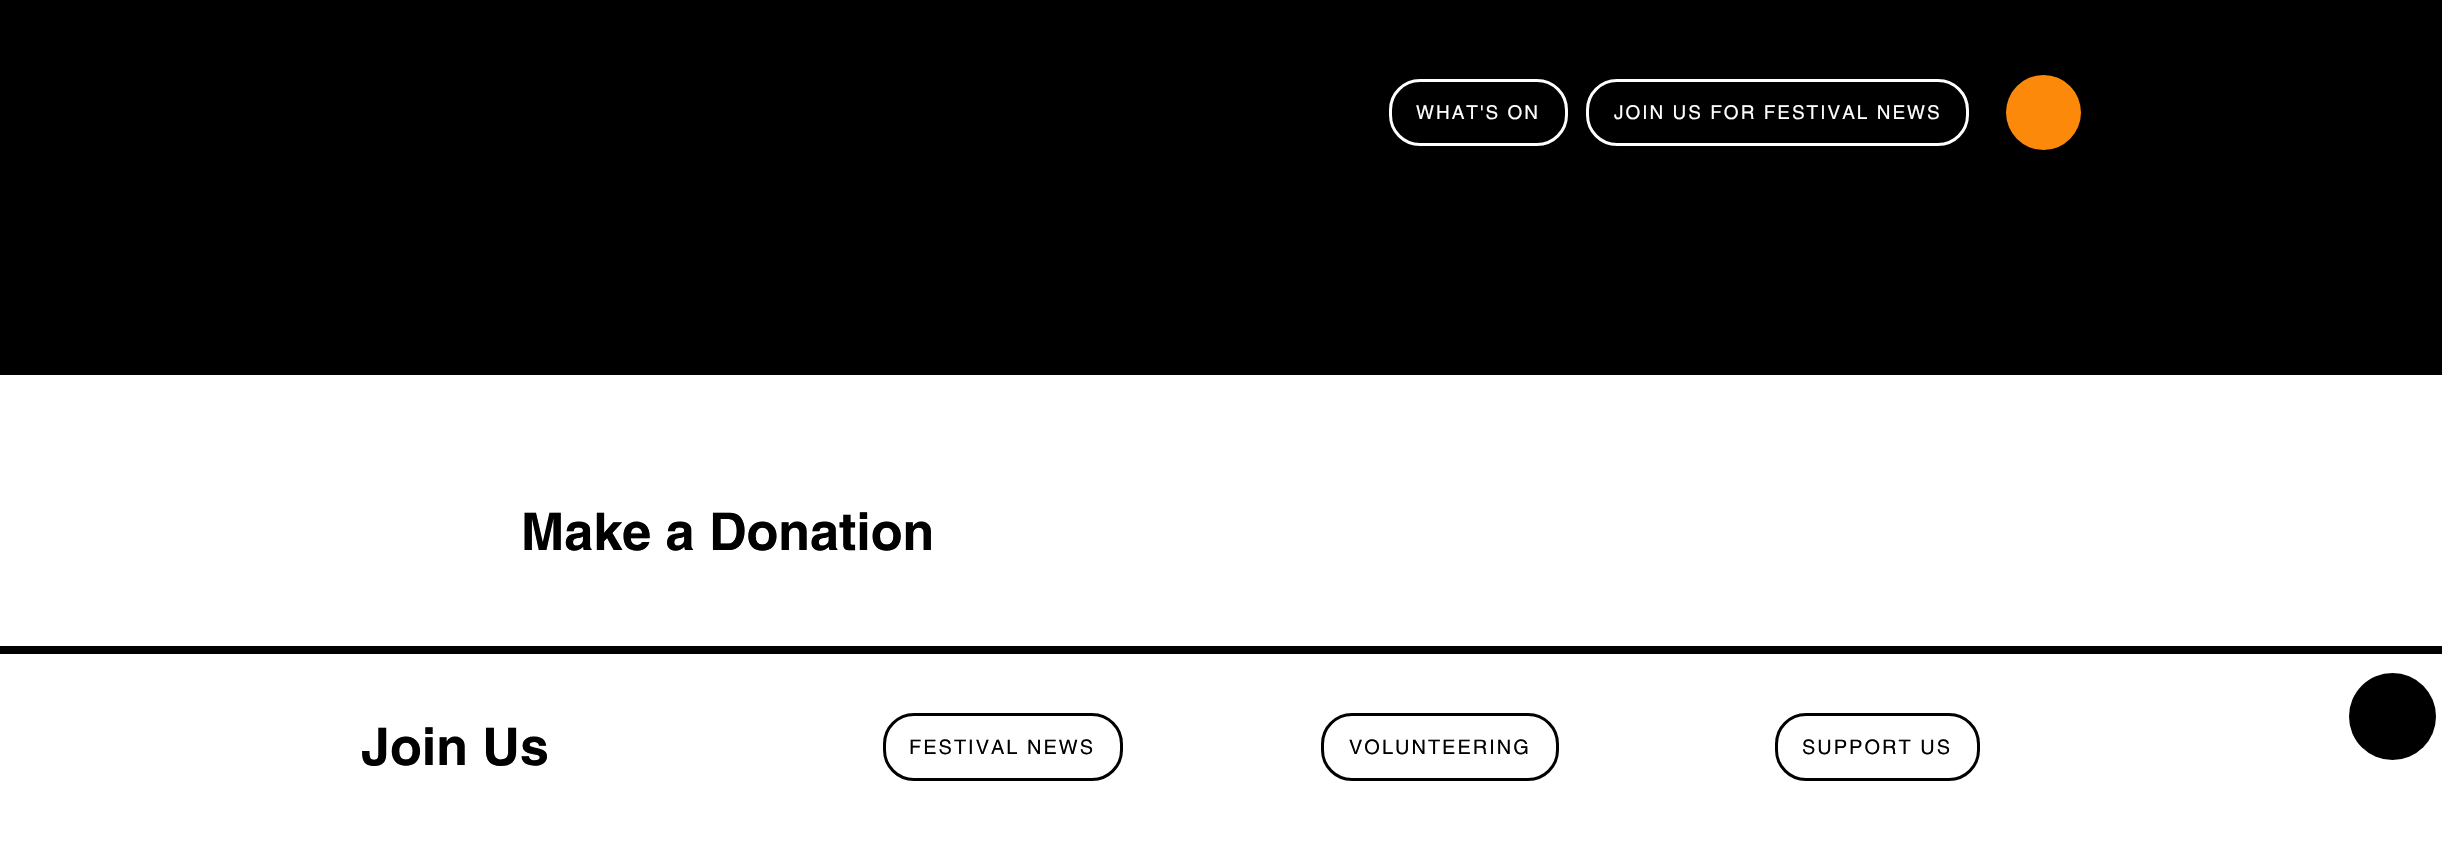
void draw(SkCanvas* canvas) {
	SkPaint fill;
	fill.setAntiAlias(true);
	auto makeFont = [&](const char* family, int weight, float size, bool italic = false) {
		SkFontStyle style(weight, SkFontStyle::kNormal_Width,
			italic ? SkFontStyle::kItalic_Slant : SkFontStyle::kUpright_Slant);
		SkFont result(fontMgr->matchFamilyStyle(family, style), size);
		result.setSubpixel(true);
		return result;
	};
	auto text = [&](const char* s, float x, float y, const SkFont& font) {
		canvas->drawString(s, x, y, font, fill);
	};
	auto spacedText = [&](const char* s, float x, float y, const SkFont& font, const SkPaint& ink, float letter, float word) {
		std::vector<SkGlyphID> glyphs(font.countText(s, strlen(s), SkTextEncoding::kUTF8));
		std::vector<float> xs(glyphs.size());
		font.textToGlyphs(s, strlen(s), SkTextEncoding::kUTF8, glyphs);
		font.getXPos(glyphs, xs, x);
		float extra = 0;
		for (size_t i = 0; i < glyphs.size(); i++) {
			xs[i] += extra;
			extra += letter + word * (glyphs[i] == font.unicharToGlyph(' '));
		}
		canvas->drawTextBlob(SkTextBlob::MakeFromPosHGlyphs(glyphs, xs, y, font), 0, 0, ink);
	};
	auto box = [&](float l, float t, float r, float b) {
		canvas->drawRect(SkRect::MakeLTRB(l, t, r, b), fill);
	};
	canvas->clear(0xFFFFFFFF);
	fill.setColor(0xFF000000);
	box(0, 0, 2442, 375);
	fill.setStyle(SkPaint::kStroke_Style);
	fill.setStrokeWidth(3);
	fill.setColor(0xFFFFFFFF);
	canvas->drawRoundRect(SkRect::MakeLTRB(1390.5f, 80.5f, 1566.5f, 144.5f), 29.5f, 29.5f, fill);
	canvas->drawRoundRect(SkRect::MakeLTRB(1587.5f, 80.5f, 1967.5f, 144.5f), 29.5f, 29.5f, fill);
	fill.setStyle(SkPaint::kFill_Style);
	fill.setColor(0xFFFC890A);
	canvas->drawCircle(2043.5f, 112.5f, 37.5f, fill);
	fill.setColor(0xFF000000);
	box(0, 646, 2442, 654);
	fill.setStyle(SkPaint::kStroke_Style);
	canvas->drawRoundRect(SkRect::MakeLTRB(884.5f, 714.5f, 1121.5f, 779.5f), 29.5f, 29.5f, fill);
	canvas->drawRoundRect(SkRect::MakeLTRB(1322.5f, 714.5f, 1557.5f, 779.5f), 29.5f, 29.5f, fill);
	canvas->drawRoundRect(SkRect::MakeLTRB(1776.5f, 714.5f, 1978.5f, 779.5f), 29.5f, 29.5f, fill);
	fill.setStyle(SkPaint::kFill_Style);
	canvas->drawCircle(2392.5f, 716.5f, 43.5f, fill);
	auto font1 = makeFont("Helvetica", 400, 19);
	fill.setColor(0xFFFFFFFF);
	spacedText("WHAT'S ON", 1416, 119, font1, fill, 2, 0);
	spacedText("JOIN US FOR FESTIVAL NEWS", 1614, 119, font1, fill, 2, 0);
	auto font2 = makeFont("Helvetica", 700, 52);
	fill.setColor(0xFF000000);
	text("Make a Donation", 521, 550, font2);
	text("Join Us", 361, 765, font2);
	auto font3 = makeFont("Helvetica", 400, 20);
	spacedText("FESTIVAL NEWS", 909, 754, font3, fill, 2, 0);
	spacedText("VOLUNTEERING", 1349, 754, font3, fill, 2, 0);
	spacedText("SUPPORT US", 1802, 754, font3, fill, 2, 0);
}
